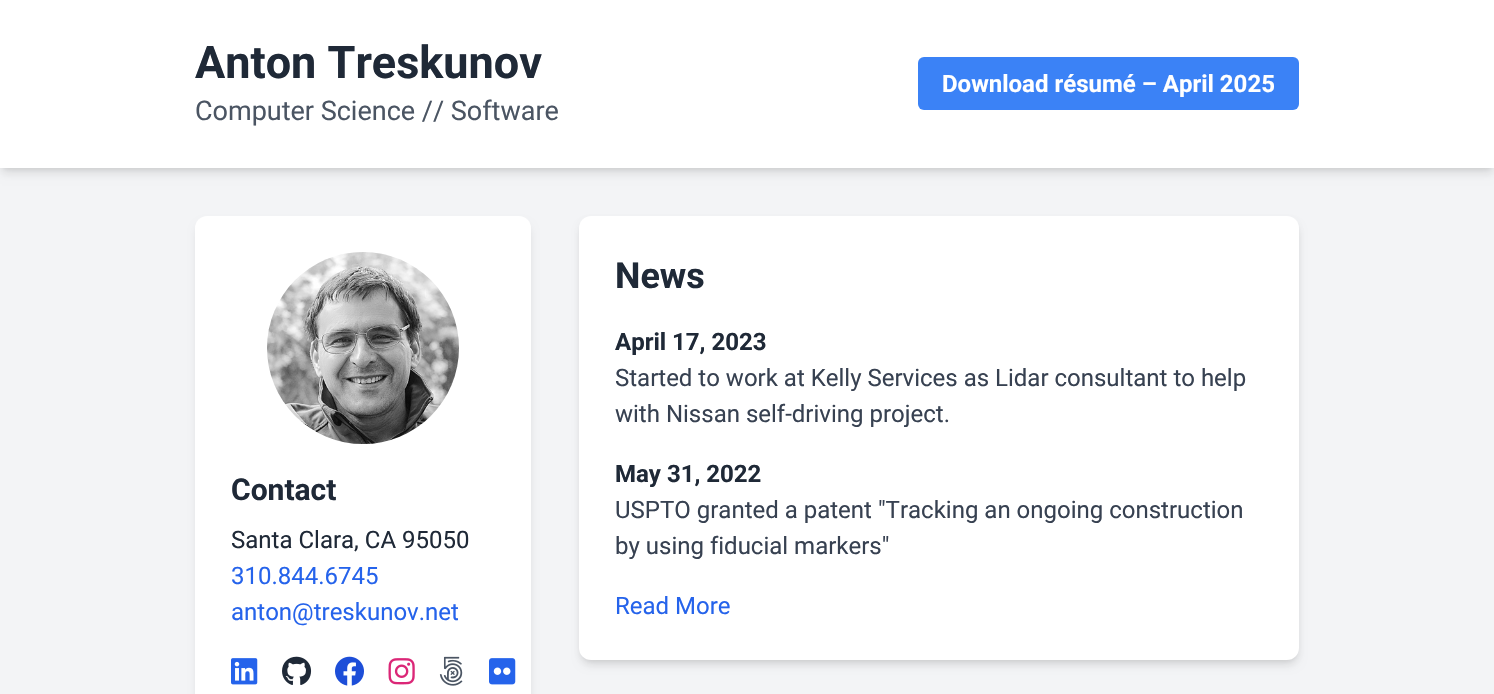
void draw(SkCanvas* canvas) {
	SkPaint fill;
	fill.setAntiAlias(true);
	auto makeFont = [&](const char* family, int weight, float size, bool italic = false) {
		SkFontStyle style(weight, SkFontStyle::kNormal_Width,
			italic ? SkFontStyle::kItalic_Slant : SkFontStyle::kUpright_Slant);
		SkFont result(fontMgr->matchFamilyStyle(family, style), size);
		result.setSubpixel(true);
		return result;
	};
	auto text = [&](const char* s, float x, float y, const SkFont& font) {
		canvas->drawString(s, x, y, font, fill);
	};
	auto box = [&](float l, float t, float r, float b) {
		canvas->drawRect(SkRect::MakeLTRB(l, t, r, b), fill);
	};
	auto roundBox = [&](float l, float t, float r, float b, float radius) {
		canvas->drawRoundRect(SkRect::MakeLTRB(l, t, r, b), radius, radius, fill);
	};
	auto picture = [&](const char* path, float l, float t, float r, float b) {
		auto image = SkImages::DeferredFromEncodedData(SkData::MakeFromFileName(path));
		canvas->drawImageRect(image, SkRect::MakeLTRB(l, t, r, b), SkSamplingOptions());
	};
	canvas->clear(0xFFF3F4F6);
	fill.setColor(0x1A000000);
	fill.setMaskFilter(SkMaskFilter::MakeBlur(kNormal_SkBlurStyle, 3));
	canvas->drawRect(SkRect::MakeLTRB(3, 6, 1491, 168), fill);
	fill.setMaskFilter(nullptr);
	fill.setMaskFilter(SkMaskFilter::MakeBlur(kNormal_SkBlurStyle, 4.5f));
	canvas->drawRect(SkRect::MakeLTRB(2, 8, 1493, 173), fill);
	fill.setMaskFilter(nullptr);
	fill.setColor(0xFFFFFFFF);
	box(0, 0, 1494, 168);
	fill.setColor(0xFF3B82F6);
	roundBox(918, 57, 1299, 110, 6);
	fill.setColor(0x1A000000);
	fill.setMaskFilter(SkMaskFilter::MakeBlur(kNormal_SkBlurStyle, 4.5f));
	canvas->drawRoundRect(SkRect::MakeLTRB(197, 224, 530, 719), 11, 11, fill);
	fill.setMaskFilter(nullptr);
	fill.setColor(0xFFFFFFFF);
	roundBox(195, 216, 531, 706, 12);
	picture("image0.png", 267, 252, 459, 444);
	picture("image1.png", 231, 658, 258, 685);
	picture("image2.png", 282, 656, 312, 685);
	picture("image3.png", 335, 656, 364, 686);
	picture("image4.png", 388, 658, 415, 685);
	picture("image5.png", 439, 656, 463, 686);
	picture("image6.png", 489, 658, 516, 685);
	fill.setColor(0x1A000000);
	fill.setMaskFilter(SkMaskFilter::MakeBlur(kNormal_SkBlurStyle, 3));
	canvas->drawRoundRect(SkRect::MakeLTRB(582, 222, 1296, 660), 9, 9, fill);
	fill.setMaskFilter(nullptr);
	fill.setMaskFilter(SkMaskFilter::MakeBlur(kNormal_SkBlurStyle, 4.5f));
	canvas->drawRoundRect(SkRect::MakeLTRB(581, 224, 1298, 665), 11, 11, fill);
	fill.setMaskFilter(nullptr);
	fill.setColor(0xFFFFFFFF);
	roundBox(579, 216, 1299, 660, 12);
	auto font1 = makeFont("Roboto", 700, 45);
	fill.setColor(0xFF1F2937);
	text("Anton Treskunov", 195, 78, font1);
	auto font2 = makeFont("Roboto", 400, 27);
	fill.setColor(0xFF4B5563);
	text("Computer Science // Software", 195, 120, font2);
	auto font3 = makeFont("Roboto", 700, 24);
	fill.setColor(0xFFFFFFFF);
	text("Download résumé – April 2025", 942, 92, font3);
	auto font4 = makeFont("Roboto", 700, 30);
	fill.setColor(0xFF1F2937);
	text("Contact", 231, 500, font4);
	auto font5 = makeFont("Roboto", 400, 24);
	text("Santa Clara, CA 95050", 231, 548, font5);
	fill.setColor(0xFF2563EB);
	text("310.844.6745", 231, 584, font5);
	text("anton@treskunov.net", 231, 620, font5);
	auto font6 = makeFont("Roboto", 700, 36);
	fill.setColor(0xFF1F2937);
	text("News", 615, 288, font6);
	text("April 17, 2023", 615, 350, font3);
	fill.setColor(0xFF374151);
	text("Started to work at Kelly Services as Lidar consultant to help", 615, 386, font5);
	text("with Nissan self-driving project.", 615, 422, font5);
	fill.setColor(0xFF1F2937);
	text("May 31, 2022", 615, 482, font3);
	fill.setColor(0xFF374151);
	text("USPTO granted a patent \"Tracking an ongoing construction", 615, 518, font5);
	text("by using fiducial markers\"", 615, 554, font5);
	fill.setColor(0xFF2563EB);
	text("Read More", 615, 614, font5);
}
